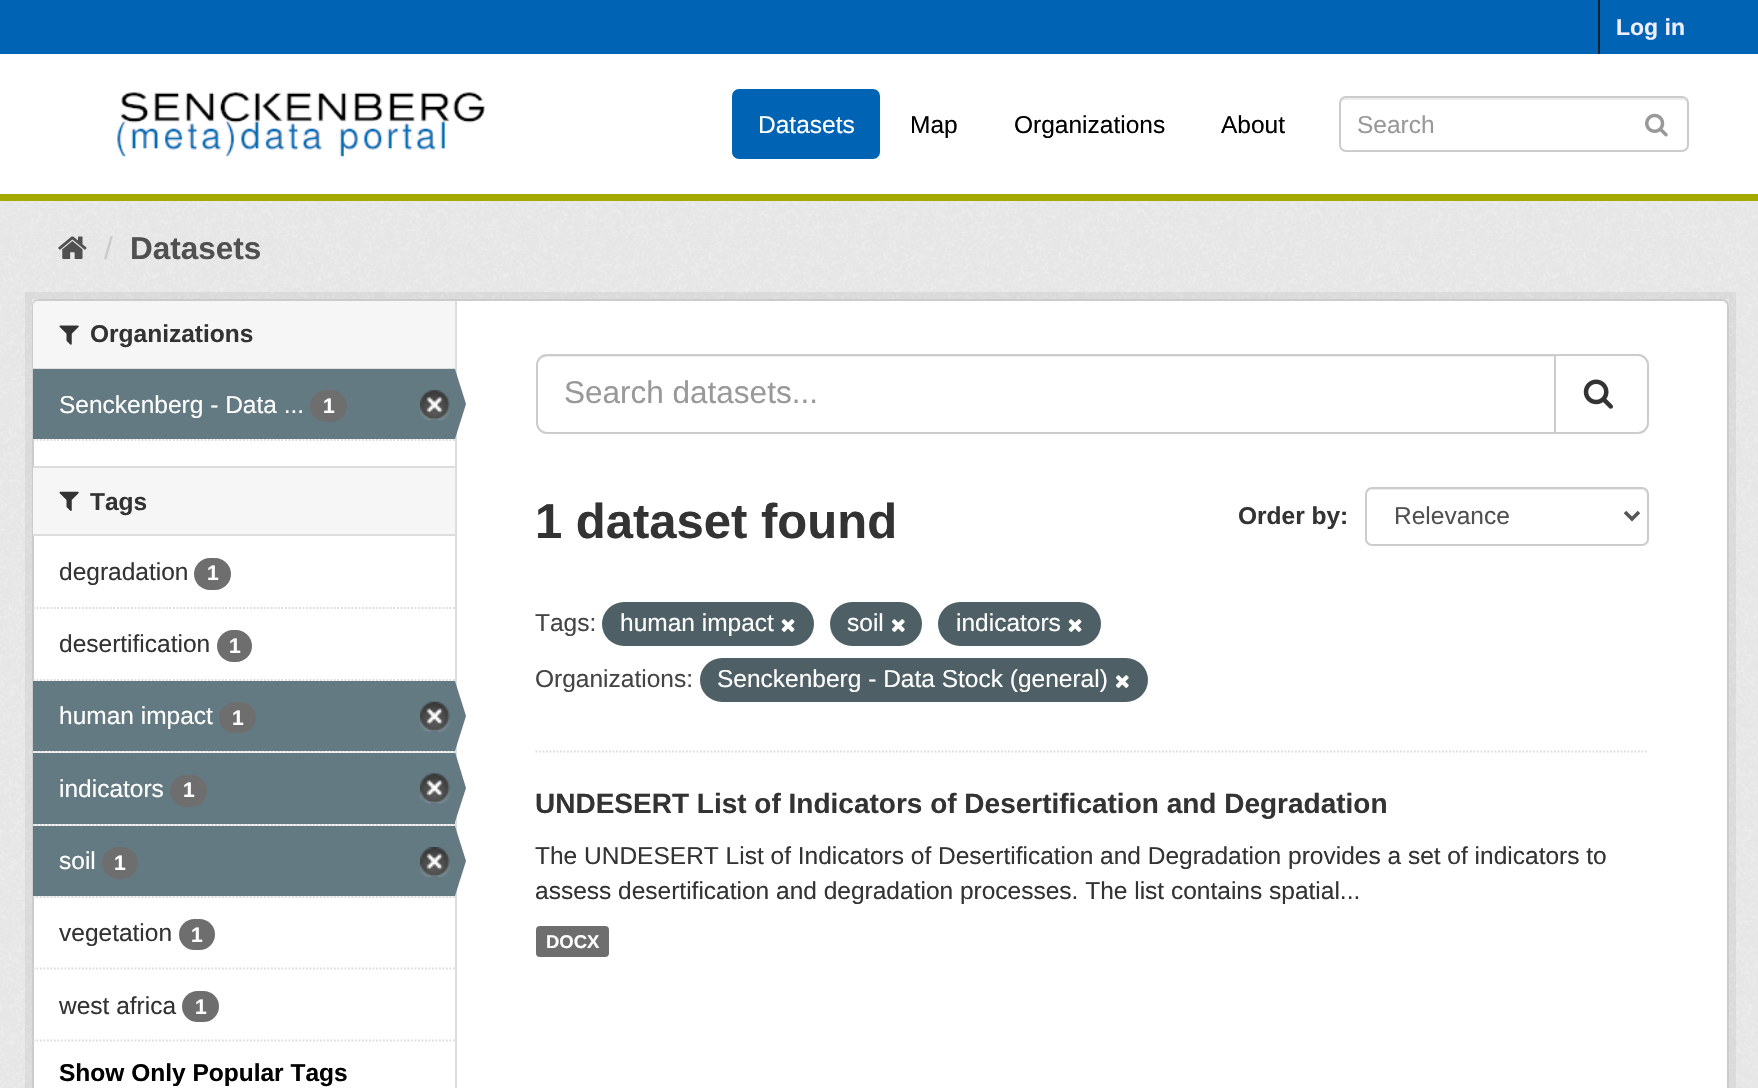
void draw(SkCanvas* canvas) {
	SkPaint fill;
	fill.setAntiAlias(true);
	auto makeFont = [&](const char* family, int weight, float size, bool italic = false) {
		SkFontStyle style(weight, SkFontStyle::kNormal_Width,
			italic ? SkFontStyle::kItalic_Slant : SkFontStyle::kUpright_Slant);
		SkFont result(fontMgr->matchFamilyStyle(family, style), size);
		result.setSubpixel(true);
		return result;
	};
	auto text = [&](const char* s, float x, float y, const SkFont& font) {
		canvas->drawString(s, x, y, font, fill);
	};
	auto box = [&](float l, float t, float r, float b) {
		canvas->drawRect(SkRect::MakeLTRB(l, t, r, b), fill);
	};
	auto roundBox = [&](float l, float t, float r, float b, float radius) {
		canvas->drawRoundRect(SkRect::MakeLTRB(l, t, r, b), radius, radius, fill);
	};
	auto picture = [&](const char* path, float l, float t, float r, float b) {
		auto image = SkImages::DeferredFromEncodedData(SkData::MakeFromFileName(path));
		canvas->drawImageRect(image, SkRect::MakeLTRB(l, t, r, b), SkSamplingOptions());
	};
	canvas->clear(0xFFFFFFFF);
	fill.setColor(0xFF0063B4);
	box(0, 0, 1758, 54);
	fill.setColor(0xFF00232E);
	box(1598, 0, 1600, 54);
	fill.setColor(0xFFA4AA00);
	box(0, 194, 1758, 201);
	picture("image0.png", 117, 92, 485, 158);
	fill.setColor(0xFF0063B4);
	roundBox(732, 89, 880, 159, 7);
	fill.setColor(0xFFECECEC);
	canvas->drawPath(SkPathBuilder().moveTo(1346, 100).lineTo(1682, 100).cubicTo(1685, 100, 1687, 102, 1687, 105).cubicTo(1687, 102, 1686, 98, 1682, 98).lineTo(1346, 98).cubicTo(1344, 98, 1341, 100, 1341, 102).cubicTo(1342, 101, 1344, 100, 1346, 100).close().detach(), fill);
	fill.setStyle(SkPaint::kStroke_Style);
	fill.setStrokeWidth(2);
	fill.setColor(0xFFCCCCCC);
	canvas->drawRoundRect(SkRect::MakeLTRB(1340, 97, 1688, 151), 6, 6, fill);
	picture("image1.png", 1645, 113, 1668, 137);
	fill.setStyle(SkPaint::kFill_Style);
	fill.setColor(0xFFEEEEEE);
	box(0, 201, 1758, 1088);
	picture("image2.png", 0, 201, 1758, 1088);
	picture("image3.png", 58, 236, 87, 259);
	fill.setStyle(SkPaint::kStroke_Style);
	fill.setStrokeWidth(7);
	fill.setColor(0x0D000000);
	canvas->drawRect(SkRect::MakeLTRB(28.5f, 295.5f, 1732.5f, 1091.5f), fill);
	fill.setStyle(SkPaint::kFill_Style);
	fill.setColor(0xFFFFFFFF);
	canvas->drawRoundRect(SkRect::MakeLTRB(33, 300, 1728, 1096), 6, 6, fill);
	fill.setStyle(SkPaint::kStroke_Style);
	fill.setStrokeWidth(2);
	fill.setColor(0xFFCCCCCC);
	canvas->drawRoundRect(SkRect::MakeLTRB(33, 300, 1728, 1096), 6, 6, fill);
	fill.setStyle(SkPaint::kFill_Style);
	fill.setColor(0xFFF6F6F6);
	canvas->drawPath(SkPathBuilder().moveTo(38, 301).lineTo(455, 301).lineTo(455, 369).lineTo(33, 369).lineTo(33, 306).cubicTo(33, 303, 35, 301, 38, 301).close().detach(), fill);
	fill.setColor(0xFFDDDDDD);
	box(33, 368, 455, 369);
	picture("image4.png", 59, 325, 79, 345);
	fill.setColor(0xFF647A82);
	box(33, 369, 455, 439);
	fill.setColor(0xFF6E6E6E);
	roundBox(310, 390, 347, 422, 16);
	picture("image5.png", 420, 390, 450, 420);
	fill.setColor(0xFFDDDDDD);
	box(455, 301, 457, 1088);
	fill.setColor(0xFF647A82);
	canvas->drawPath(SkPathBuilder().moveTo(455, 439).lineTo(455, 369).lineTo(466, 404).close().detach(), fill);
	fill.setStyle(SkPaint::kStroke_Style);
	fill.setStrokeWidth(1.8f);
	fill.setColor(0xFFDDDDDD);
	fill.setPathEffect(SkDashPathEffect::Make({{1.75f, 1.75f}}, 0));
	canvas->drawPath(SkPathBuilder().moveTo(33, 440).lineTo(455, 440).detach(), fill);
	fill.setPathEffect(nullptr);
	fill.setStyle(SkPaint::kFill_Style);
	fill.setColor(0xFFF6F6F6);
	box(33, 468, 455, 534);
	fill.setColor(0xFFDDDDDD);
	box(33, 466, 455, 468);
	box(33, 534, 455, 536);
	picture("image6.png", 59, 491, 79, 511);
	fill.setStyle(SkPaint::kStroke_Style);
	fill.setPathEffect(SkDashPathEffect::Make({{1.75f, 1.75f}}, 0));
	canvas->drawPath(SkPathBuilder().moveTo(33, 608).lineTo(455, 608).detach(), fill);
	fill.setPathEffect(nullptr);
	fill.setStyle(SkPaint::kFill_Style);
	fill.setColor(0xFF6E6E6E);
	roundBox(194, 558, 231, 590, 16);
	fill.setStyle(SkPaint::kStroke_Style);
	fill.setColor(0xFFDDDDDD);
	fill.setPathEffect(SkDashPathEffect::Make({{1.75f, 1.75f}}, 0));
	canvas->drawPath(SkPathBuilder().moveTo(33, 680).lineTo(455, 680).detach(), fill);
	fill.setPathEffect(nullptr);
	fill.setStyle(SkPaint::kFill_Style);
	fill.setColor(0xFF6E6E6E);
	roundBox(217, 630, 252, 662, 16);
	fill.setColor(0xFFF6F6F6);
	box(33, 751, 455, 753);
	fill.setStyle(SkPaint::kStroke_Style);
	fill.setColor(0xFFDDDDDD);
	fill.setPathEffect(SkDashPathEffect::Make({{1.75f, 1.75f}}, 0));
	canvas->drawPath(SkPathBuilder().moveTo(33, 751.5f).lineTo(455, 751.5f).detach(), fill);
	fill.setPathEffect(nullptr);
	fill.setStyle(SkPaint::kFill_Style);
	fill.setColor(0xFF647A82);
	box(33, 681, 455, 751);
	fill.setColor(0xFF6E6E6E);
	roundBox(219, 702, 256, 733, 15.5f);
	picture("image7.png", 420, 701, 450, 732);
	fill.setColor(0xFF647A82);
	canvas->drawPath(SkPathBuilder().moveTo(455, 751).lineTo(455, 681).lineTo(466, 716).close().detach(), fill);
	fill.setColor(0xFFF6F6F6);
	box(33, 824, 455, 826);
	fill.setStyle(SkPaint::kStroke_Style);
	fill.setColor(0xFFDDDDDD);
	fill.setPathEffect(SkDashPathEffect::Make({{1.75f, 1.75f}}, 0));
	canvas->drawPath(SkPathBuilder().moveTo(33, 825).lineTo(455, 825).detach(), fill);
	fill.setPathEffect(nullptr);
	fill.setStyle(SkPaint::kFill_Style);
	fill.setColor(0xFF647A82);
	box(33, 753, 455, 824);
	fill.setColor(0xFF6E6E6E);
	roundBox(170, 775, 207, 807, 16);
	picture("image8.png", 420, 773, 450, 804);
	fill.setColor(0xFF647A82);
	canvas->drawPath(SkPathBuilder().moveTo(455, 822).lineTo(455, 752).lineTo(466, 788).close().detach(), fill);
	fill.setColor(0xFFF6F6F6);
	box(33, 896, 455, 898);
	fill.setStyle(SkPaint::kStroke_Style);
	fill.setColor(0xFFDDDDDD);
	fill.setPathEffect(SkDashPathEffect::Make({{1.75f, 1.75f}}, 0));
	canvas->drawPath(SkPathBuilder().moveTo(33, 897).lineTo(455, 897).detach(), fill);
	fill.setPathEffect(nullptr);
	fill.setStyle(SkPaint::kFill_Style);
	fill.setColor(0xFF647A82);
	box(33, 826, 455, 896);
	fill.setColor(0xFF6E6E6E);
	roundBox(102, 847, 138, 879, 16);
	picture("image9.png", 420, 847, 450, 877);
	fill.setColor(0xFF647A82);
	canvas->drawPath(SkPathBuilder().moveTo(455, 896).lineTo(455, 826).lineTo(466, 861).close().detach(), fill);
	fill.setStyle(SkPaint::kStroke_Style);
	fill.setColor(0xFFDDDDDD);
	fill.setPathEffect(SkDashPathEffect::Make({{1.75f, 1.75f}}, 0));
	canvas->drawPath(SkPathBuilder().moveTo(33, 968.5f).lineTo(455, 968.5f).detach(), fill);
	fill.setPathEffect(nullptr);
	fill.setStyle(SkPaint::kFill_Style);
	fill.setColor(0xFF6E6E6E);
	roundBox(179, 919, 215, 950, 15.5f);
	roundBox(182, 991, 219, 1022, 15.5f);
	fill.setStyle(SkPaint::kStroke_Style);
	fill.setColor(0xFFDDDDDD);
	fill.setPathEffect(SkDashPathEffect::Make({{1.75f, 1.75f}}, 0));
	canvas->drawPath(SkPathBuilder().moveTo(33, 1040.5f).lineTo(455, 1040.5f).detach(), fill);
	fill.setPathEffect(nullptr);
	fill.setPathEffect(SkDashPathEffect::Make({{1.75f, 1.75f}}, 0));
	canvas->drawPath(SkPathBuilder().moveTo(535.5f, 751.5f).lineTo(1648.5f, 751.5f).detach(), fill);
	fill.setPathEffect(nullptr);
	fill.setStyle(SkPaint::kFill_Style);
	fill.setColor(0xFFECECEC);
	canvas->drawPath(SkPathBuilder().moveTo(546, 357).lineTo(1554, 357).lineTo(1554, 355).lineTo(546, 355).cubicTo(540, 355, 537, 360, 537, 366).cubicTo(537, 361, 541, 357, 546, 357).close().detach(), fill);
	fill.setStyle(SkPaint::kStroke_Style);
	fill.setStrokeWidth(2);
	fill.setColor(0xFFCCCCCC);
	canvas->drawPath(SkPathBuilder().moveTo(547, 355).lineTo(1555, 355).lineTo(1555, 433).lineTo(547, 433).cubicTo(541.5f, 433, 537, 428.5f, 537, 423).lineTo(537, 365).cubicTo(537, 359.5f, 541.5f, 355, 547, 355).close().detach(), fill);
	fill.setStyle(SkPaint::kFill_Style);
	fill.setColor(0xFFFFFFFF);
	canvas->drawPath(SkPathBuilder().moveTo(1555, 355).lineTo(1638, 355).cubicTo(1643.5f, 355, 1648, 359.5f, 1648, 365).lineTo(1648, 423).cubicTo(1648, 428.5f, 1643.5f, 433, 1638, 433).lineTo(1555, 433).close().detach(), fill);
	fill.setStyle(SkPaint::kStroke_Style);
	fill.setColor(0xFFCCCCCC);
	canvas->drawPath(SkPathBuilder().moveTo(1555, 355).lineTo(1638, 355).cubicTo(1643.5f, 355, 1648, 359.5f, 1648, 365).lineTo(1648, 423).cubicTo(1648, 428.5f, 1643.5f, 433, 1638, 433).lineTo(1555, 433).close().detach(), fill);
	picture("image10.png", 1583, 379, 1613, 409);
	fill.setStyle(SkPaint::kFill_Style);
	fill.setColor(0xFFECECEC);
	canvas->drawPath(SkPathBuilder().moveTo(1372, 490).lineTo(1642, 490).cubicTo(1644, 490, 1647, 492, 1647, 495).lineTo(1647, 493).cubicTo(1647, 490, 1645, 488, 1642, 488).lineTo(1372, 488).cubicTo(1369, 488, 1367, 490, 1367, 493).lineTo(1367, 495).cubicTo(1367, 492, 1369, 490, 1372, 490).close().detach(), fill);
	fill.setStyle(SkPaint::kStroke_Style);
	fill.setColor(0xFFCCCCCC);
	canvas->drawRoundRect(SkRect::MakeLTRB(1366, 488, 1648, 545), 6, 6, fill);
	fill.setStrokeWidth(3.5f);
	fill.setColor(0xFF555555);
	canvas->drawPath(SkPathBuilder().moveTo(1625, 512).lineTo(1632, 519).lineTo(1639, 512).detach(), fill);
	fill.setStyle(SkPaint::kFill_Style);
	fill.setColor(0xFF4E5F65);
	roundBox(602, 602, 814, 646, 22);
	picture("image11.png", 781, 619, 795, 632);
	roundBox(830, 602, 922, 646, 22);
	picture("image12.png", 891, 619, 905, 632);
	roundBox(938, 602, 1101, 646, 22);
	picture("image11.png", 1068, 619, 1082, 632);
	roundBox(700, 658, 1148, 702, 22);
	picture("image12.png", 1115, 675, 1129, 688);
	fill.setColor(0xFF6E6E6E);
	roundBox(536, 926, 609, 957, 4);
	auto font1 = makeFont("Liberation Sans", 700, 23);
	fill.setColor(0xFFEEEEFF);
	text("Log in", 1616, 35, font1);
	auto font2 = makeFont("Liberation Sans", 400, 24.5f);
	fill.setColor(0xFFFFFFFF);
	text("Datasets", 758, 133, font2);
	fill.setColor(0xFF000000);
	text("Map", 910, 133, font2);
	text("Organizations", 1014, 133, font2);
	text("About", 1221, 133, font2);
	fill.setColor(0xFF999999);
	text("Search", 1357, 133, font2);
	auto font3 = makeFont("Liberation Sans", 400, 31.5f);
	fill.setColor(0xFFCCCCCC);
	text("/", 104, 259, font3);
	auto font4 = makeFont("Liberation Sans", 700, 31.5f);
	fill.setColor(0xFF505050);
	text("Datasets", 130, 259, font4);
	auto font5 = makeFont("Liberation Sans", 700, 24.5f);
	fill.setColor(0xFF333333);
	text("Organizations", 90, 342, font5);
	fill.setColor(0xFFFFFFFF);
	text("Senckenberg - Data ...", 59, 413, font2);
	auto font6 = makeFont("Liberation Sans", 700, 21);
	text("1", 323, 413, font6);
	fill.setColor(0xFF333333);
	text("Tags", 90, 510, font5);
	text("degradation", 59, 580, font2);
	fill.setColor(0xFFFFFFFF);
	text("1", 207, 580, font6);
	fill.setColor(0xFF333333);
	text("desertification", 59, 652, font2);
	fill.setColor(0xFFFFFFFF);
	text("1", 229, 653, font6);
	text("human impact", 59, 724, font2);
	text("1", 232, 725, font6);
	text("indicators", 59, 797, font2);
	text("1", 183, 797, font6);
	text("soil", 59, 869, font2);
	text("1", 114, 870, font6);
	fill.setColor(0xFF333333);
	text("vegetation", 59, 941, font2);
	fill.setColor(0xFFFFFFFF);
	text("1", 191, 942, font6);
	fill.setColor(0xFF333333);
	text("west africa", 59, 1014, font2);
	fill.setColor(0xFFFFFFFF);
	text("1", 195, 1014, font6);
	fill.setColor(0xFF000000);
	text("Show Only Popular Tags", 59, 1081, font5);
	fill.setColor(0xFF999999);
	text("Search datasets...", 564, 403, font3);
	auto font7 = makeFont("Liberation Sans", 700, 49);
	fill.setColor(0xFF333333);
	text("1 dataset found", 535, 538, font7);
	text("Order by:", 1238, 524, font5);
	fill.setColor(0xFF505050);
	text("Relevance", 1394, 524, font2);
	fill.setColor(0xFF444444);
	text("Tags:", 535, 631, font2);
	fill.setColor(0xFFFFFFFF);
	text("human impact", 620, 631, font2);
	text("soil", 847, 631, font2);
	text("indicators", 956, 631, font2);
	fill.setColor(0xFF444444);
	text("Organizations:", 535, 687, font2);
	fill.setColor(0xFFFFFFFF);
	text("Senckenberg - Data Stock (general)", 717, 687, font2);
	auto font8 = makeFont("Liberation Sans", 700, 28);
	fill.setColor(0xFF333333);
	text("UNDESERT List of Indicators of Desertification and Degradation", 535, 813, font8);
	text("The UNDESERT List of Indicators of Desertification and Degradation provides a set of indicators to", 535, 864, font2);
	text("assess desertification and degradation processes. The list contains spatial...", 535, 899, font2);
	auto font9 = makeFont("Liberation Sans", 700, 18.5f);
	fill.setColor(0xFFFFFFFF);
	text("DOCX", 546, 948, font9);
}
